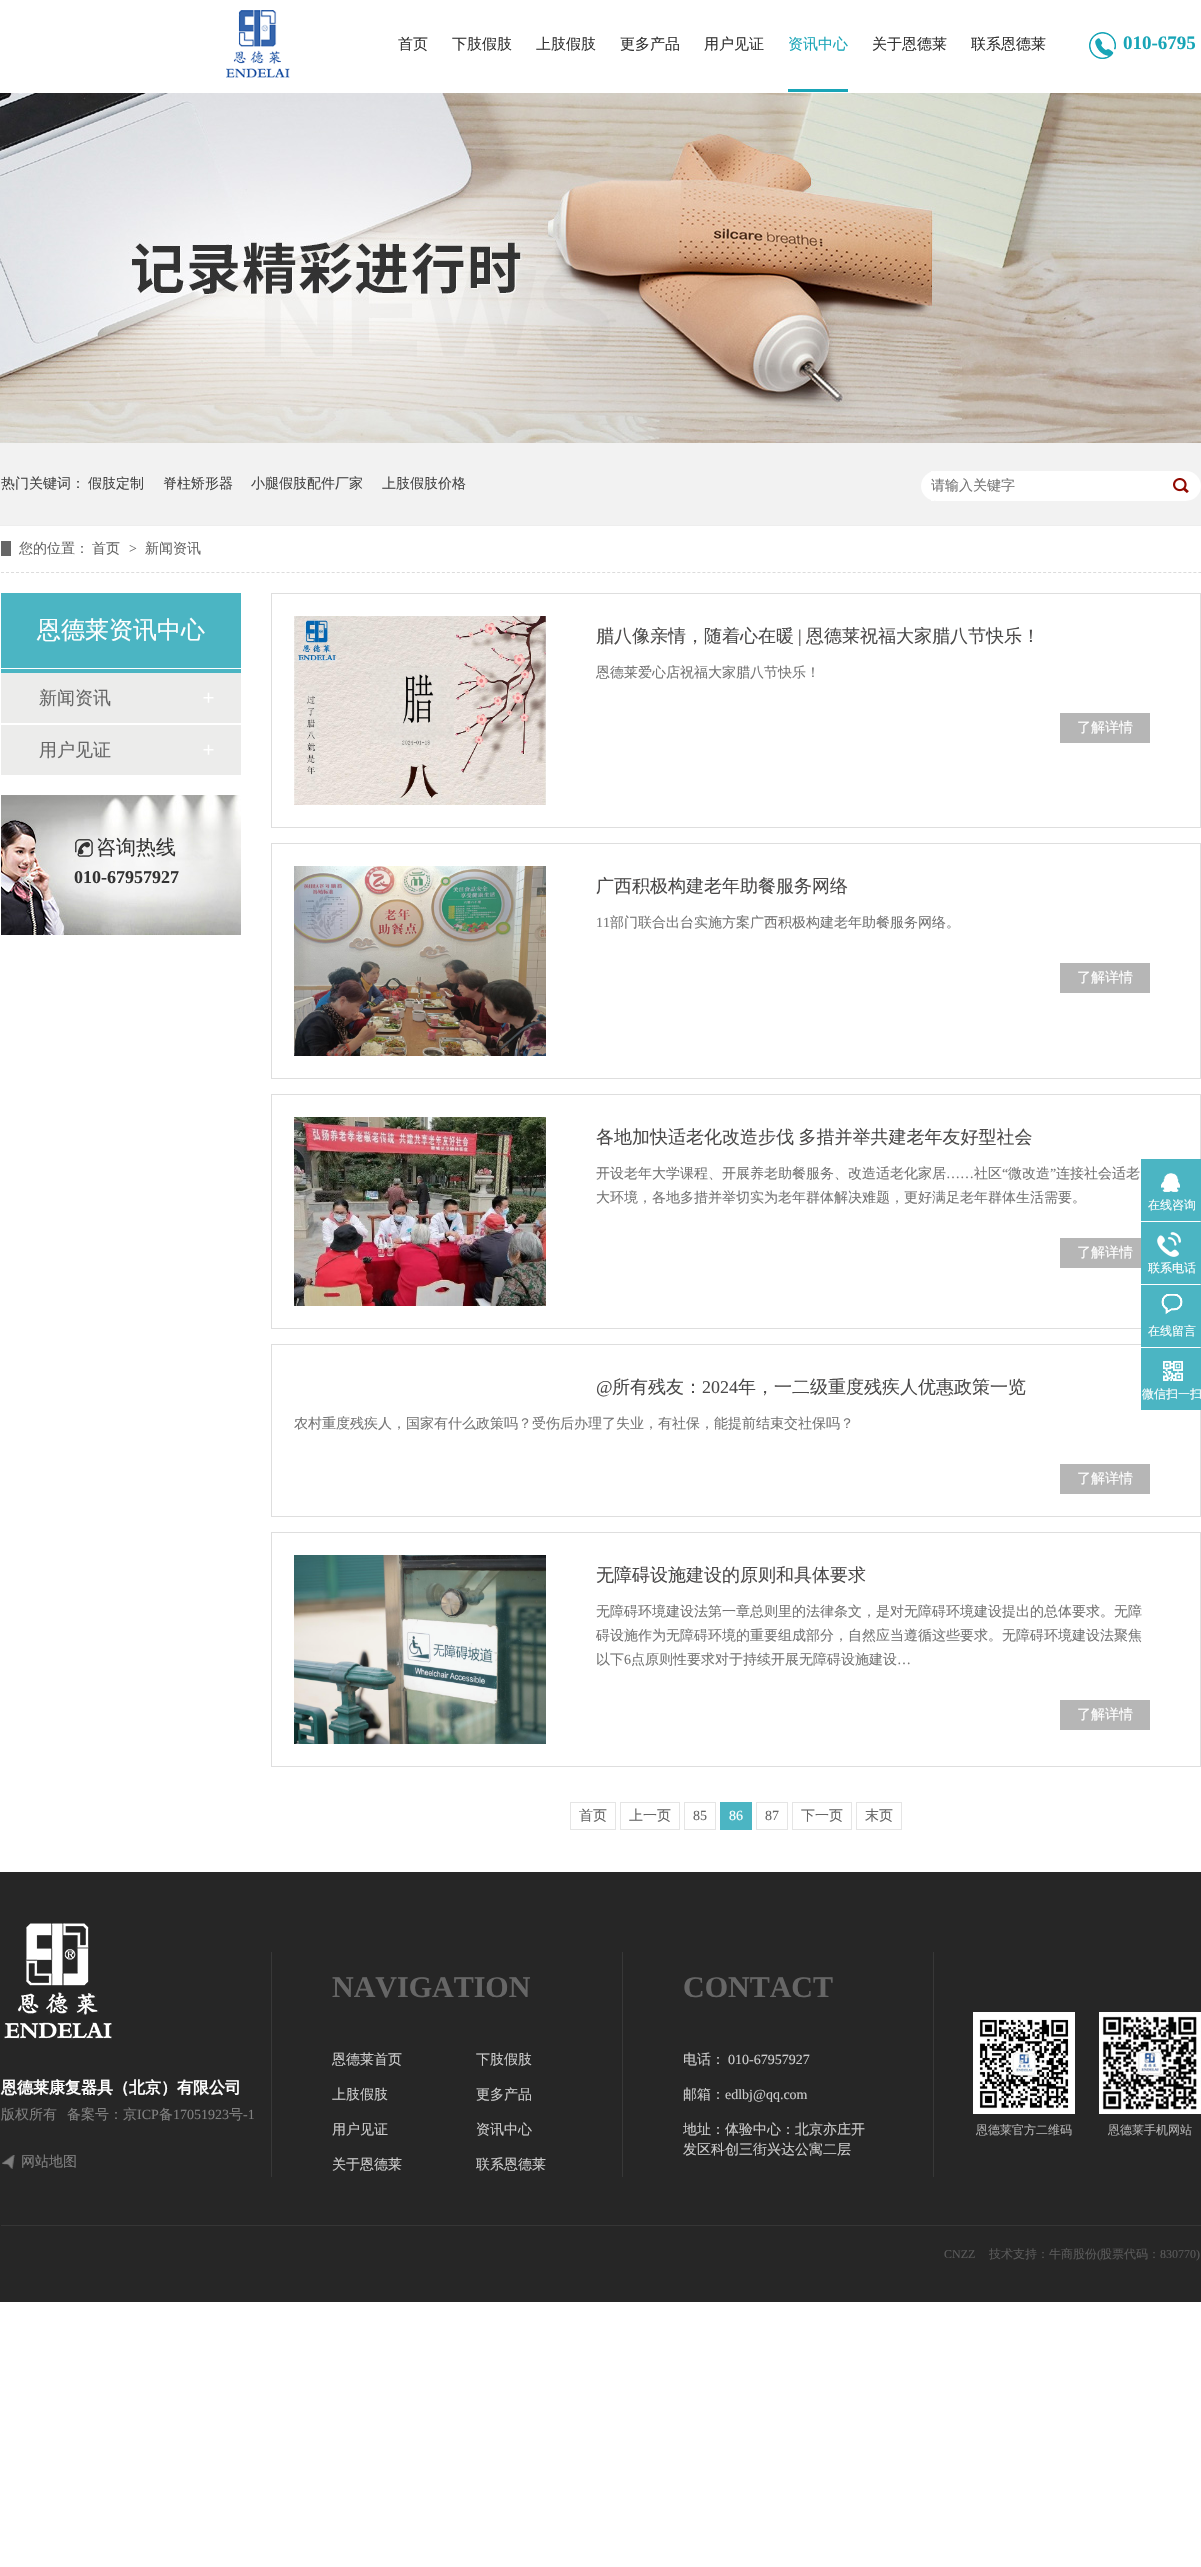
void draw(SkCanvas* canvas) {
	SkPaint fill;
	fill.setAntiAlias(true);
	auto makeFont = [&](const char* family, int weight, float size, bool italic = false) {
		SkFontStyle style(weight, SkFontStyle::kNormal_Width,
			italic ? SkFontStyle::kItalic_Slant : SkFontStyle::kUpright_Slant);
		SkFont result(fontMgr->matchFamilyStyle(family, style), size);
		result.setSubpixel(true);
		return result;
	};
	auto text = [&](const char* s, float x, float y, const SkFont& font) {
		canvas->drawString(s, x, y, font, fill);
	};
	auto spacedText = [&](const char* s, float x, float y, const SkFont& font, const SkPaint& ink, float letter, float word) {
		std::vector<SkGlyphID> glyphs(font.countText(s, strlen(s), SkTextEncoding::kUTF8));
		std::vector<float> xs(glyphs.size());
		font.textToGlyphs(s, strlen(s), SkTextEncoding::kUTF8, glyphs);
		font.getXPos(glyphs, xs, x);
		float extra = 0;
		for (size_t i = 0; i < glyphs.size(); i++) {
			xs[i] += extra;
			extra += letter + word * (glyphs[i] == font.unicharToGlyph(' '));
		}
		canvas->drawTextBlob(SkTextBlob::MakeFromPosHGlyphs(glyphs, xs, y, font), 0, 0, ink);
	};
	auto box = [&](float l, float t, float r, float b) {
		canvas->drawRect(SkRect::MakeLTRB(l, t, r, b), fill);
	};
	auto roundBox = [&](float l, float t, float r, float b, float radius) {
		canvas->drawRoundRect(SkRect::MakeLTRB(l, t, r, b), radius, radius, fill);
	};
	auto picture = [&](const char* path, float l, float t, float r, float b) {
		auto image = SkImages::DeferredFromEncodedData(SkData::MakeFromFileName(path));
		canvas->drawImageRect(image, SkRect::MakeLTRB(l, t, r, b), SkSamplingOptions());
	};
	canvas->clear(0xFFFFFFFF);
	picture("image0.png", 226, 10, 290, 78);
	fill.setColor(0xFF18A5B7);
	box(788, 89, 848, 92);
	picture("image1.png", 1089, 32, 1116, 59);
	picture("image2.png", 0, 93, 1201, 443);
	fill.setColor(0xFFF2F2F2);
	box(0, 443, 1201, 525);
	fill.setColor(0xFFEEEEEE);
	box(0, 525, 1201, 526);
	fill.setColor(0xFFFFFFFF);
	roundBox(921, 471, 1201, 501, 15);
	box(931, 471, 934, 501);
	picture("image3.png", 1173, 478, 1189, 493);
	fill.setStyle(SkPaint::kStroke_Style);
	fill.setStrokeWidth(1);
	fill.setColor(0xFFDCDCDC);
	fill.setPathEffect(SkDashPathEffect::Make({{3, 2.01f}}, 0));
	canvas->drawPath(SkPathBuilder().moveTo(1, 572.5f).lineTo(1201, 572.5f).detach(), fill);
	fill.setPathEffect(nullptr);
	fill.setStyle(SkPaint::kFill_Style);
	fill.setColor(0xFF666666);
	box(1, 541, 11, 556);
	fill.setColor(0xFF4BB5C3);
	box(1, 593, 241, 673);
	fill.setColor(0xFFFFFFFF);
	box(1, 668, 241, 669);
	fill.setColor(0xFFECECEB);
	box(1, 673, 241, 723);
	picture("image4.png", 203, 692, 214, 703);
	box(1, 725, 241, 775);
	picture("image4.png", 203, 744, 214, 755);
	picture("image5.png", 1, 795, 241, 935);
	picture("image6.png", 75, 839, 93, 857);
	fill.setStyle(SkPaint::kStroke_Style);
	fill.setColor(0xFFDEDEDE);
	canvas->drawRect(SkRect::MakeLTRB(271.5f, 593.5f, 1200.5f, 827.5f), fill);
	picture("image7.png", 294, 616, 546, 805);
	fill.setStyle(SkPaint::kFill_Style);
	fill.setColor(0xFFB6B6B6);
	box(1060, 713, 1150, 743);
	fill.setStyle(SkPaint::kStroke_Style);
	fill.setColor(0xFFDEDEDE);
	canvas->drawRect(SkRect::MakeLTRB(271.5f, 843.5f, 1200.5f, 1078.5f), fill);
	picture("image8.png", 294, 866, 546, 1056);
	fill.setStyle(SkPaint::kFill_Style);
	fill.setColor(0xFFB6B6B6);
	box(1060, 963, 1150, 993);
	fill.setStyle(SkPaint::kStroke_Style);
	fill.setColor(0xFFDEDEDE);
	canvas->drawRect(SkRect::MakeLTRB(271.5f, 1094.5f, 1200.5f, 1328.5f), fill);
	picture("image9.png", 294, 1117, 546, 1306);
	fill.setStyle(SkPaint::kFill_Style);
	fill.setColor(0xFFB6B6B6);
	box(1060, 1238, 1141, 1268);
	fill.setStyle(SkPaint::kStroke_Style);
	fill.setColor(0xFFDEDEDE);
	canvas->drawRect(SkRect::MakeLTRB(271.5f, 1344.5f, 1200.5f, 1516.5f), fill);
	fill.setStyle(SkPaint::kFill_Style);
	fill.setColor(0xFFB6B6B6);
	box(1060, 1464, 1150, 1494);
	fill.setStyle(SkPaint::kStroke_Style);
	fill.setColor(0xFFDEDEDE);
	canvas->drawRect(SkRect::MakeLTRB(271.5f, 1532.5f, 1200.5f, 1766.5f), fill);
	picture("image10.png", 294, 1555, 546, 1744);
	fill.setStyle(SkPaint::kFill_Style);
	fill.setColor(0xFFB6B6B6);
	box(1060, 1700, 1150, 1730);
	fill.setStyle(SkPaint::kStroke_Style);
	fill.setColor(0xFFE5E5E5);
	canvas->drawRect(SkRect::MakeLTRB(570.5f, 1802.5f, 615.5f, 1829.5f), fill);
	canvas->drawRect(SkRect::MakeLTRB(620.5f, 1802.5f, 679.5f, 1829.5f), fill);
	canvas->drawRect(SkRect::MakeLTRB(684.5f, 1802.5f, 715.5f, 1829.5f), fill);
	fill.setStyle(SkPaint::kFill_Style);
	fill.setColor(0xFF4BB5C3);
	box(720, 1802, 752, 1830);
	fill.setStyle(SkPaint::kStroke_Style);
	fill.setColor(0xFFE5E5E5);
	canvas->drawRect(SkRect::MakeLTRB(756.5f, 1802.5f, 787.5f, 1829.5f), fill);
	canvas->drawRect(SkRect::MakeLTRB(792.5f, 1802.5f, 851.5f, 1829.5f), fill);
	canvas->drawRect(SkRect::MakeLTRB(856.5f, 1802.5f, 901.5f, 1829.5f), fill);
	fill.setStyle(SkPaint::kFill_Style);
	fill.setColor(0xFF4BB5C3);
	box(1141, 1159, 1201, 1221);
	picture("image11.png", 1161, 1173, 1180, 1192);
	box(1141, 1222, 1201, 1284);
	picture("image12.png", 1157, 1232, 1181, 1257);
	box(1141, 1285, 1201, 1347);
	picture("image13.png", 1161, 1294, 1183, 1315);
	box(1141, 1348, 1201, 1410);
	picture("image14.png", 1163, 1361, 1183, 1381);
	fill.setColor(0xFF262626);
	box(0, 1872, 1201, 2302);
	fill.setColor(0xFF363636);
	box(1, 2225, 1201, 2226);
	picture("image15.png", 3, 1923, 112, 2040);
	picture("image16.png", 2, 2155, 15, 2169);
	fill.setColor(0xFF383838);
	box(622, 1952, 623, 2177);
	box(271, 1952, 272, 2177);
	box(933, 1952, 934, 2177);
	picture("image17.png", 973, 2012, 1075, 2114);
	picture("image18.png", 1099, 2012, 1201, 2114);
	auto font1 = makeFont("WenQuanYi Zen Hei", 500, 15);
	fill.setColor(0xFF333333);
	text("首页", 398, 49, font1);
	text("下肢假肢", 452, 49, font1);
	text("上肢假肢", 536, 49, font1);
	text("更多产品", 620, 49, font1);
	text("用户见证", 704, 49, font1);
	fill.setColor(0xFF18A5B7);
	text("资讯中心", 788, 49, font1);
	fill.setColor(0xFF333333);
	text("关于恩德莱", 872, 49, font1);
	text("联系恩德莱", 971, 49, font1);
	auto font2 = makeFont("Liberation Serif", 700, 19);
	fill.setColor(0xFF18A5B7);
	text("010-6795", 1123, 49, font2);
	auto font3 = makeFont("WenQuanYi Zen Hei", 500, 14);
	fill.setColor(0xFF444444);
	text("热门关键词：", 1, 488, font3);
	text("假肢定制", 88, 488, font3);
	text("脊柱矫形器", 163, 488, font3);
	text("小腿假肢配件厂家", 251, 488, font3);
	text("上肢假肢价格", 382, 488, font3);
	fill.setColor(0xFF757575);
	text("请输入关键字", 931, 490, font3);
	fill.setColor(0xFF666666);
	text("您的位置：", 19, 553, font3);
	text("首页", 92, 553, font3);
	auto font4 = makeFont("Liberation Serif", 400, 14);
	text(">", 129, 553, font4);
	text("新闻资讯", 145, 553, font3);
	auto font5 = makeFont("WenQuanYi Zen Hei", 500, 24);
	fill.setColor(0xFFFFFFFF);
	text("恩德莱资讯中心", 37, 638, font5);
	auto font6 = makeFont("WenQuanYi Zen Hei", 500, 18);
	fill.setColor(0xFF666666);
	text("新闻资讯", 39, 704, font6);
	text("用户见证", 39, 756, font6);
	auto font7 = makeFont("WenQuanYi Zen Hei", 500, 20);
	fill.setColor(0xFF333333);
	text("咨询热线", 96, 854, font7);
	auto font8 = makeFont("Liberation Serif", 700, 18);
	text("010-67957927", 74, 883, font8);
	fill.setColor(0xFF4B4A4A);
	text("腊八像亲情，随着心在暖", 596, 642, font6);
	auto font9 = makeFont("Liberation Serif", 400, 18);
	text("|", 798, 642, font9);
	text("恩德莱祝福大家腊八节快乐！", 806, 642, font6);
	fill.setColor(0xFF757575);
	text("恩德莱爱心店祝福大家腊八节快乐！", 596, 677, font3);
	fill.setColor(0xFFFFFFFF);
	text("了解详情", 1077, 732, font3);
	fill.setColor(0xFF4B4A4A);
	text("广西积极构建老年助餐服务网络", 596, 892, font6);
	fill.setColor(0xFF757575);
	text("11", 596, 927, font4);
	text("部门联合出台实施方案广西积极构建老年助餐服务网络。", 610, 927, font3);
	fill.setColor(0xFFFFFFFF);
	text("了解详情", 1077, 982, font3);
	fill.setColor(0xFF4B4A4A);
	spacedText("各地加快适老化改造步伐 多措并举共建老年友好型社会", 596, 1143, font6, fill, 0, -1);
	fill.setColor(0xFF757575);
	text("开设老年大学课程、开展养老助餐服务、改造适老化家居", 596, 1178, font3);
	text("社区", 974, 1178, font3);
	text("“", 1002, 1178, font4);
	text("微改造", 1008, 1178, font3);
	text("”", 1050, 1178, font4);
	text("连接社会适老", 1056, 1178, font3);
	text("……", 946, 1178, font4);
	text("大环境，各地多措并举切实为老年群体解决难题，更好满足老年群体生活需要。", 596, 1202, font3);
	fill.setColor(0xFFFFFFFF);
	text("了解详情", 1077, 1257, font3);
	fill.setColor(0xFF4B4A4A);
	text("@", 596, 1393, font9);
	text("所有残友：", 612, 1393, font6);
	text("2024", 702, 1393, font9);
	text("年，一二级重度残疾人优惠政策一览", 738, 1393, font6);
	fill.setColor(0xFF757575);
	text("农村重度残疾人，国家有什么政策吗？受伤后办理了失业，有社保，能提前结束交社保吗？", 294, 1428, font3);
	fill.setColor(0xFFFFFFFF);
	text("了解详情", 1077, 1483, font3);
	fill.setColor(0xFF4B4A4A);
	text("无障碍设施建设的原则和具体要求", 596, 1581, font6);
	fill.setColor(0xFF757575);
	text("无障碍环境建设法第一章总则里的法律条文，是对无障碍环境建设提出的总体要求。无障", 596, 1616, font3);
	text("碍设施作为无障碍环境的重要组成部分，自然应当遵循这些要求。无障碍环境建设法聚焦", 596, 1640, font3);
	text("以下", 596, 1664, font3);
	text("6", 624, 1664, font4);
	text("点原则性要求对于持续开展无障碍设施建设", 631, 1664, font3);
	text("…", 897, 1664, font4);
	fill.setColor(0xFFFFFFFF);
	text("了解详情", 1077, 1719, font3);
	fill.setColor(0xFF666666);
	text("首页", 579, 1820, font3);
	text("上一页", 629, 1820, font3);
	text("85", 693, 1820, font4);
	fill.setColor(0xFFFFFFFF);
	text("86", 729, 1820, font4);
	fill.setColor(0xFF666666);
	text("87", 765, 1820, font4);
	text("下一页", 801, 1820, font3);
	text("末页", 865, 1820, font3);
	auto font10 = makeFont("WenQuanYi Zen Hei", 500, 12);
	fill.setColor(0xFFFFFFFF);
	text("在线咨询", 1148, 1209, font10);
	text("联系电话", 1148, 1272, font10);
	text("在线留言", 1148, 1335, font10);
	text("微信扫一扫", 1142, 1398, font10);
	auto font11 = makeFont("WenQuanYi Zen Hei", 700, 16);
	text("恩德莱康复器具（北京）有限公司", 1, 2093, font11);
	fill.setColor(0xFF808080);
	text("版权所有", 1, 2119, font3);
	text("备案号：京", 67, 2119, font3);
	text("ICP", 137, 2119, font4);
	text("备", 159, 2119, font3);
	text("17051923", 173, 2119, font4);
	text("号", 229, 2119, font3);
	text("-1", 243, 2119, font4);
	text("网站地图", 21, 2166, font3);
	auto font12 = makeFont("Liberation Serif", 700, 30);
	fill.setColor(0xFF666666);
	text("NAVIGATION", 332, 1997, font12);
	fill.setColor(0xFFCCCCCC);
	text("恩德莱首页", 332, 2064, font3);
	text("下肢假肢", 476, 2064, font3);
	text("上肢假肢", 332, 2099, font3);
	text("更多产品", 476, 2099, font3);
	text("用户见证", 332, 2134, font3);
	text("资讯中心", 476, 2134, font3);
	text("关于恩德莱", 332, 2169, font3);
	text("联系恩德莱", 476, 2169, font3);
	fill.setColor(0xFF666666);
	text("CONTACT", 683, 1997, font12);
	fill.setColor(0xFFCCCCCC);
	text("电话：", 683, 2064, font3);
	text("010-67957927", 728, 2064, font4);
	text("邮箱：", 683, 2099, font3);
	text("edlbj@qq.com", 725, 2099, font4);
	text("地址：体验中心：北京亦庄开", 683, 2134, font3);
	text("发区科创三街兴达公寓二层", 683, 2154, font3);
	fill.setColor(0xFFB2B2B2);
	text("恩德莱官方二维码", 976, 2134, font10);
	text("恩德莱手机网站", 1108, 2134, font10);
	auto font13 = makeFont("Liberation Serif", 400, 12);
	fill.setColor(0xFF595959);
	text("CNZZ", 944, 2258, font13);
	text("技术支持：牛商股份", 989, 2258, font10);
	text("(", 1097, 2258, font13);
	text("股票代码：", 1100, 2258, font10);
	text("830770)", 1160, 2258, font13);
}
